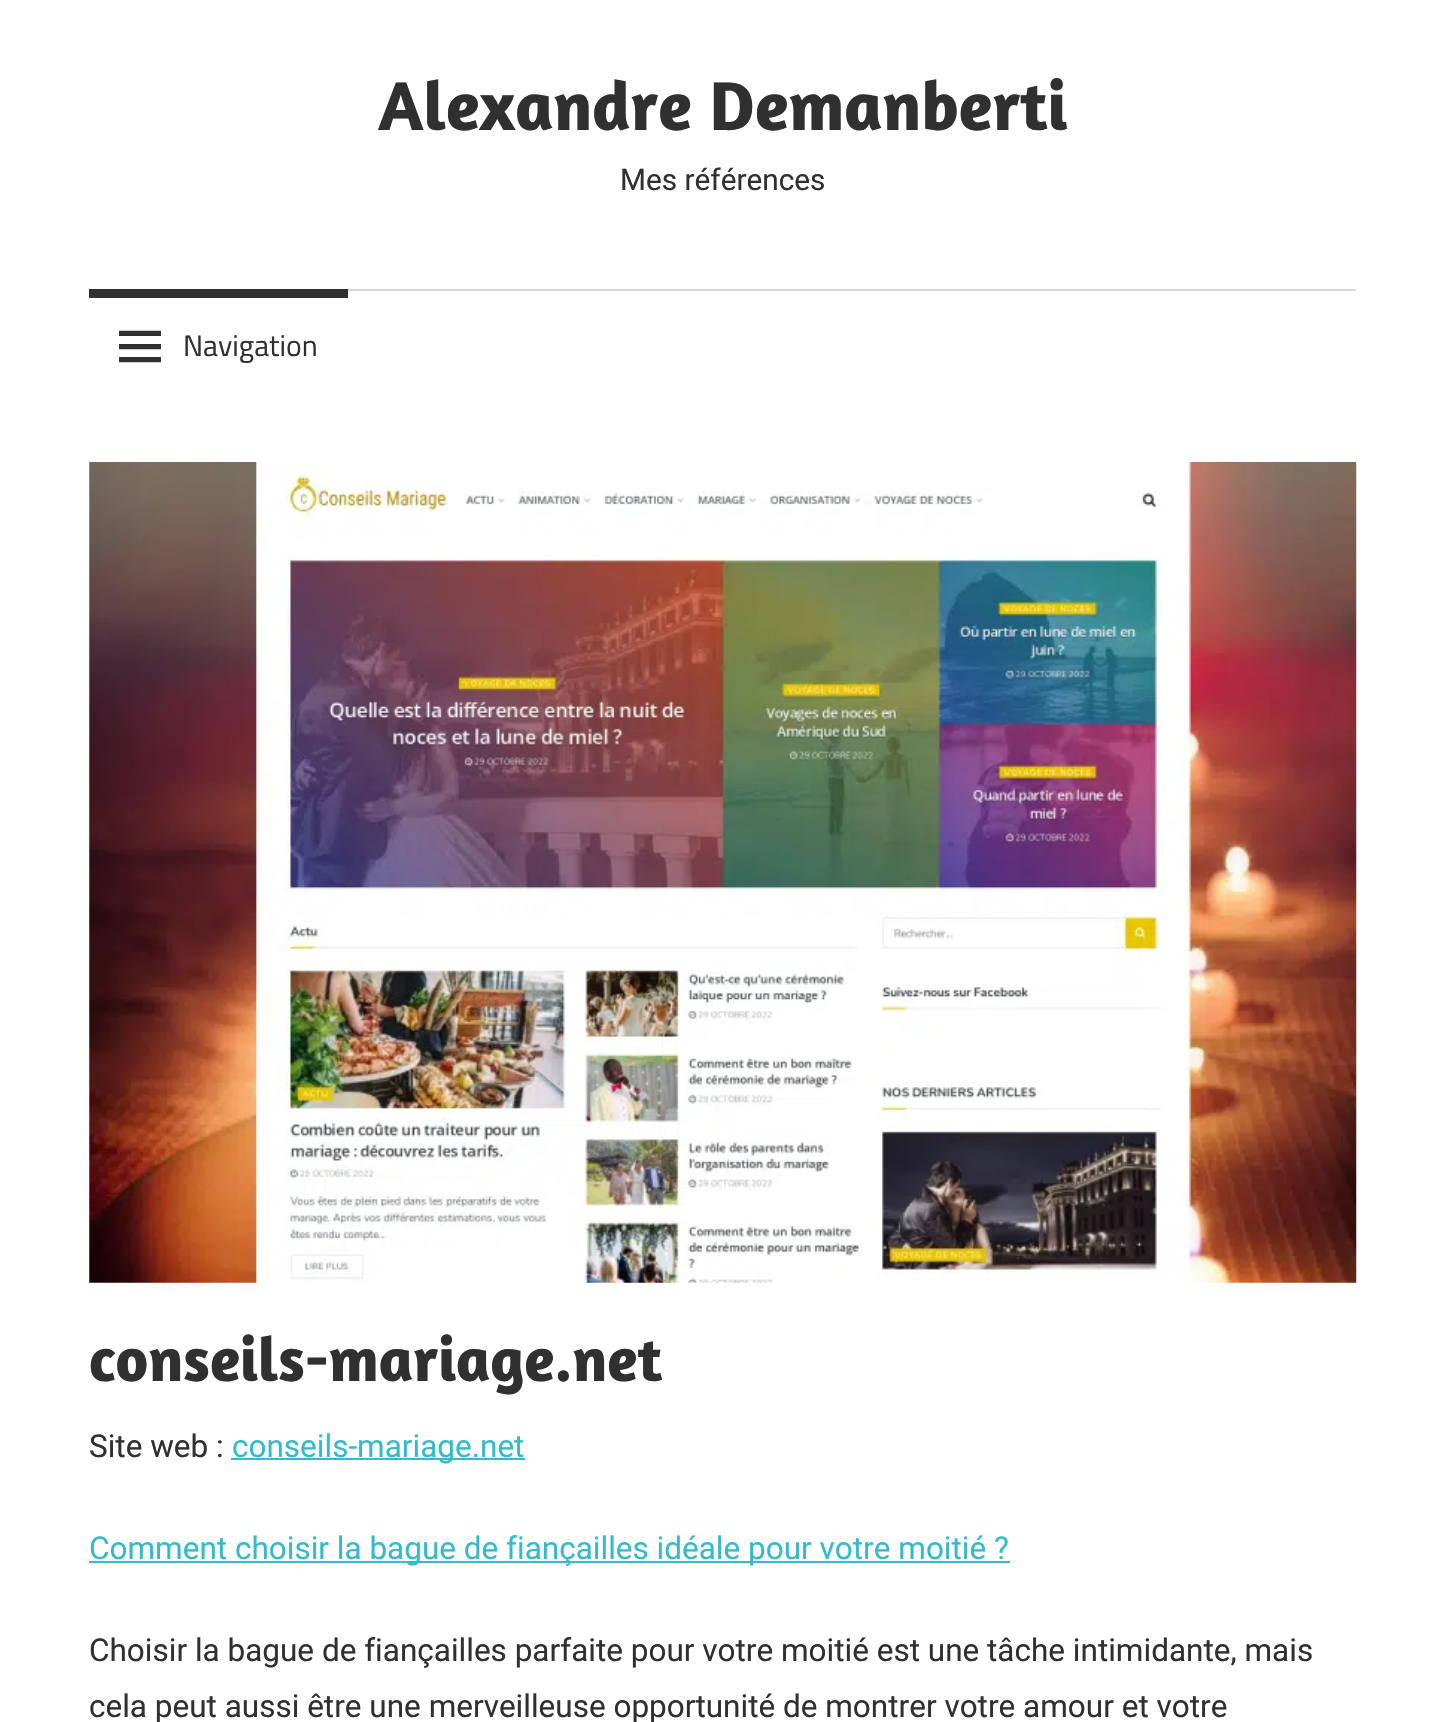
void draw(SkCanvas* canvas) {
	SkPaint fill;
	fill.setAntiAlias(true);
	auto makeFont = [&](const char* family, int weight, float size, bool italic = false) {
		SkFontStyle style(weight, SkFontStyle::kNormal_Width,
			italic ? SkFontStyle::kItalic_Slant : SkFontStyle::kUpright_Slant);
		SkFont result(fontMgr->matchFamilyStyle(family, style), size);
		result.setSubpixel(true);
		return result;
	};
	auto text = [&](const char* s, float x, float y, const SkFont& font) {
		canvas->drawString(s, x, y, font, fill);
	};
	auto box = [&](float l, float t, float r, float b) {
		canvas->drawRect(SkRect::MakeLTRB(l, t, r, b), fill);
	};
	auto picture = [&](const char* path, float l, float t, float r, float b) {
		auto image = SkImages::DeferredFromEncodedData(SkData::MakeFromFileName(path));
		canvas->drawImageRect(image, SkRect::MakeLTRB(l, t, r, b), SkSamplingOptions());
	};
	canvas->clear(0xFFFFFFFF);
	fill.setColor(0xFFD9D9D9);
	box(348, 289, 1356, 291);
	fill.setColor(0xFF303030);
	box(89, 289, 348, 298);
	picture("image0.png", 119, 330, 161, 363);
	picture("image1.png", 89, 462, 1357, 1283);
	fill.setColor(0xFF33BBCC);
	box(231, 1458, 525, 1460);
	box(89, 1561, 1010, 1563);
	auto font1 = makeFont("Amaranth", 700, 70);
	fill.setColor(0xFF303030);
	text("Alexandre Demanberti", 378, 130, font1);
	auto font2 = makeFont("Roboto", 400, 29.75f);
	text("Mes références", 620, 190, font2);
	auto font3 = makeFont("Titillium Web", 400, 29.75f);
	text("Navigation", 183, 356, font3);
	auto font4 = makeFont("Amaranth", 700, 63);
	text("conseils-mariage.net", 89, 1381, font4);
	auto font5 = makeFont("Roboto", 400, 31.5f);
	text("Site web :", 89, 1457, font5);
	fill.setColor(0xFF33BBCC);
	text("conseils-mariage.net", 232, 1457, font5);
	text("Comment choisir la bague de fiançailles idéale pour votre moitié ?", 89, 1559, font5);
	fill.setColor(0xFF303030);
	text("Choisir la bague de fiançailles parfaite pour votre moitié est une tâche intimidante, mais", 89, 1661, font5);
	text("cela peut aussi être une merveilleuse opportunité de montrer votre amour et votre", 89, 1717, font5);
}
